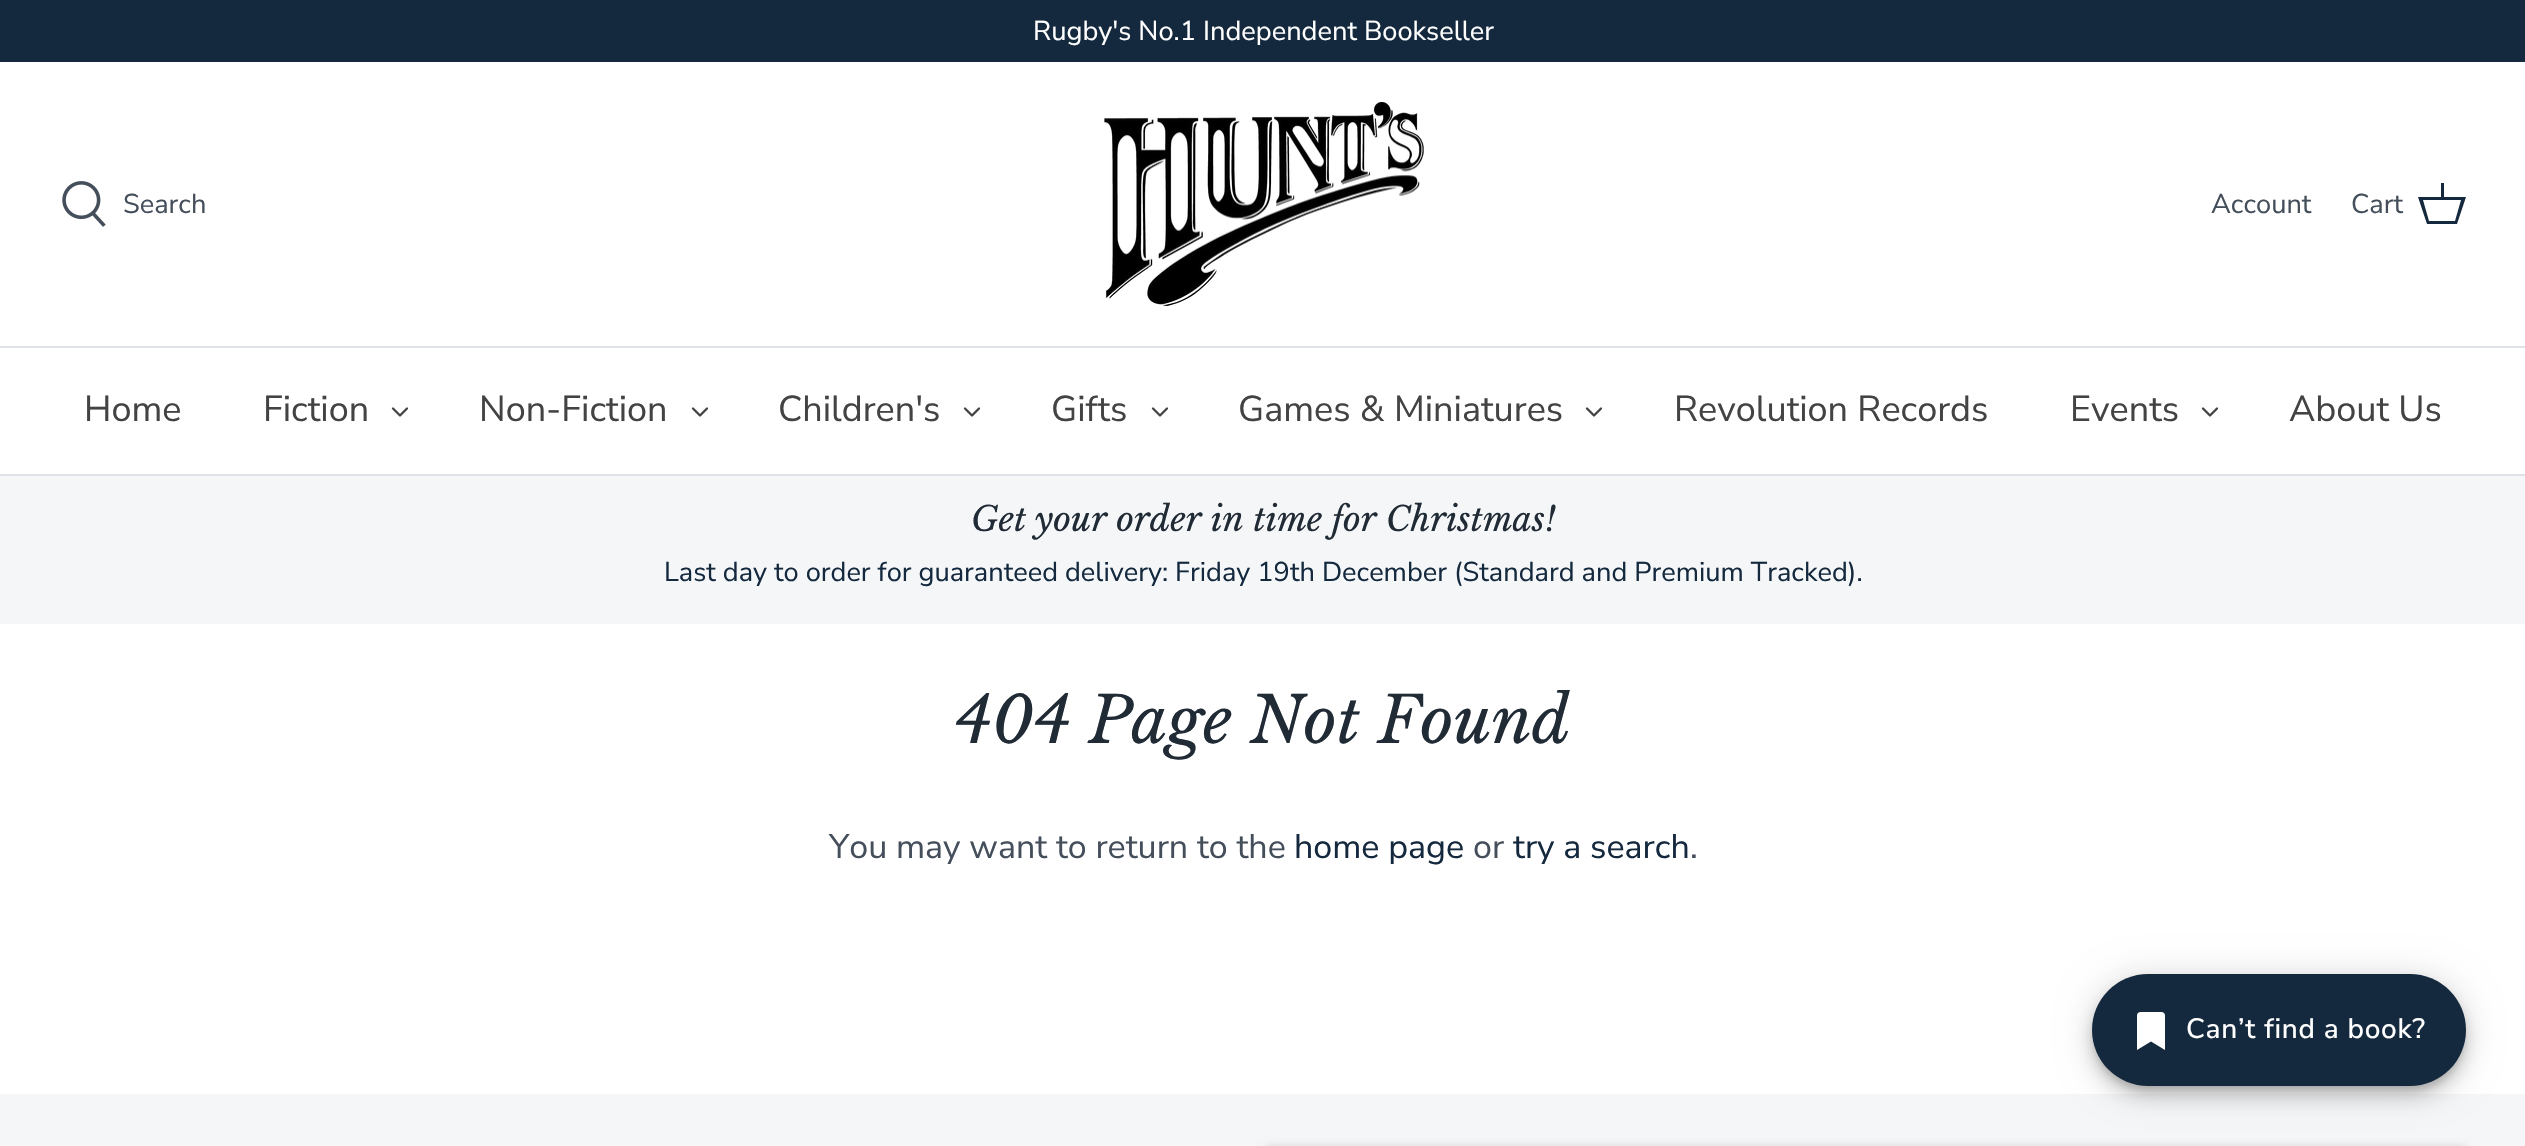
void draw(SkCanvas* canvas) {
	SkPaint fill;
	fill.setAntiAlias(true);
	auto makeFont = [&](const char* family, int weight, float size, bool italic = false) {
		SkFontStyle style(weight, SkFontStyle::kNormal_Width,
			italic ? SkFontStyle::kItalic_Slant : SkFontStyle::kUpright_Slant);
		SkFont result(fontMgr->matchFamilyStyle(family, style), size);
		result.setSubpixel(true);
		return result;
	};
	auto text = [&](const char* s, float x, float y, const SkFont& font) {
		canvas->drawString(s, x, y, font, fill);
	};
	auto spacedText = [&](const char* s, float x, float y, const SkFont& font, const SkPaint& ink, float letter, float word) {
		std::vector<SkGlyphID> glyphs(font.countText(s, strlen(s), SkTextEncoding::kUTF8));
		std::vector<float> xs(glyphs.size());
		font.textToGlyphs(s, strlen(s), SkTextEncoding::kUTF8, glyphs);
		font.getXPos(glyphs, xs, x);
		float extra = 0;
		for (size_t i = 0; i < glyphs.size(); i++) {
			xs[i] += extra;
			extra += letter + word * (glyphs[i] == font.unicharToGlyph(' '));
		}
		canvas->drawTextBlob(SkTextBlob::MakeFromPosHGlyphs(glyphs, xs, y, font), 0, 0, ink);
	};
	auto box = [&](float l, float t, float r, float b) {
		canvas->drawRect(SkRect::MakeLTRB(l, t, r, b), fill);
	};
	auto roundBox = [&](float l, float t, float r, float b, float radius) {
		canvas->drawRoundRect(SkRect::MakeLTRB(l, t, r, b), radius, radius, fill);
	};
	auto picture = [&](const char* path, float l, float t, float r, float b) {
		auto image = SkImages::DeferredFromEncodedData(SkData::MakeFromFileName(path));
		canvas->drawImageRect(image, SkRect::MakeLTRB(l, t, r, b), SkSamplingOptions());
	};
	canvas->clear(0xFFFFFFFF);
	fill.setColor(0xFF14293E);
	box(0, 0, 2525, 62);
	fill.setColor(0xFFDFE3E8);
	box(0, 346, 2525, 348);
	picture("image0.png", 62, 181, 106, 227);
	picture("image1.png", 1104, 102, 1424, 306);
	fill.setColor(0xFF14293E);
	canvas->drawPath(SkPathBuilder().moveTo(2441, 197).lineTo(2441, 183).lineTo(2444, 183).lineTo(2444, 197).lineTo(2466, 197).lineTo(2457, 224).lineTo(2427, 224).lineTo(2418, 197).close().moveTo(2423, 200).lineTo(2429, 221).lineTo(2455, 221).lineTo(2461, 200).close().detach(), fill);
	fill.setColor(0xFFDFE3E8);
	box(0, 474, 2525, 476);
	fill.setStyle(SkPaint::kStroke_Style);
	fill.setStrokeWidth(2.3f);
	fill.setStrokeCap(SkPaint::kRound_Cap);
	fill.setStrokeJoin(SkPaint::kRound_Join);
	fill.setColor(0xFF434343);
	canvas->drawPath(SkPathBuilder().moveTo(393, 408.5f).lineTo(400, 415.5f).lineTo(407, 408.5f).detach(), fill);
	canvas->drawPath(SkPathBuilder().moveTo(693, 408.5f).lineTo(700, 415.5f).lineTo(707, 408.5f).detach(), fill);
	canvas->drawPath(SkPathBuilder().moveTo(965, 408.5f).lineTo(972, 415.5f).lineTo(979, 408.5f).detach(), fill);
	canvas->drawPath(SkPathBuilder().moveTo(1153, 408.5f).lineTo(1160, 415.5f).lineTo(1167, 408.5f).detach(), fill);
	canvas->drawPath(SkPathBuilder().moveTo(1587, 408.5f).lineTo(1594, 415.5f).lineTo(1601, 408.5f).detach(), fill);
	canvas->drawPath(SkPathBuilder().moveTo(2203, 408.5f).lineTo(2210, 415.5f).lineTo(2217, 408.5f).detach(), fill);
	fill.setStyle(SkPaint::kFill_Style);
	fill.setColor(0xFFF4F6F8);
	box(0, 476, 2525, 624);
	box(0, 1094, 2525, 1146);
	fill.setColor(0x1F000000);
	fill.setMaskFilter(SkMaskFilter::MakeBlur(kNormal_SkBlurStyle, 18));
	canvas->drawRoundRect(SkRect::MakeLTRB(2092, 976, 2466, 1088), 56, 56, fill);
	fill.setMaskFilter(nullptr);
	fill.setColor(0x24000000);
	fill.setMaskFilter(SkMaskFilter::MakeBlur(kNormal_SkBlurStyle, 10));
	canvas->drawRoundRect(SkRect::MakeLTRB(2092, 986, 2466, 1098), 56, 56, fill);
	fill.setMaskFilter(nullptr);
	fill.setColor(0x33000000);
	fill.setMaskFilter(SkMaskFilter::MakeBlur(kNormal_SkBlurStyle, 5));
	canvas->drawRoundRect(SkRect::MakeLTRB(2094, 982, 2464, 1090), 54, 54, fill);
	fill.setMaskFilter(nullptr);
	fill.setColor(0xFF14293E);
	roundBox(2092, 974, 2466, 1086, 56);
	fill.setColor(0xFFFFFFFF);
	canvas->drawPath(SkPathBuilder().moveTo(2137, 1050).lineTo(2137, 1015.5f).cubicTo(2137, 1013.5f, 2138.5f, 1012, 2140.5f, 1012).lineTo(2161.5f, 1012).cubicTo(2163.5f, 1012, 2165, 1013.5f, 2165, 1015.5f).lineTo(2165, 1050).lineTo(2151, 1041.5f).close().detach(), fill);
	fill.setColor(0x33000000);
	fill.setMaskFilter(SkMaskFilter::MakeBlur(kNormal_SkBlurStyle, 5));
	canvas->drawRoundRect(SkRect::MakeLTRB(1266, 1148, 2466, 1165), 4, 4, fill);
	fill.setMaskFilter(nullptr);
	auto font1 = makeFont("Nunito Sans", 400, 27.2f);
	fill.setColor(0xFFFFFFFF);
	text("Rugby's No.1 Independent Bookseller", 1033, 40, font1);
	fill.setColor(0xFF454F5B);
	text("Search", 123, 213, font1);
	text("Account", 2211, 213, font1);
	text("Cart", 2351, 213, font1);
	auto font2 = makeFont("Nunito Sans", 400, 36);
	fill.setColor(0xFF434343);
	text("Home", 84, 421, font2);
	text("Fiction", 263, 421, font2);
	text("Non-Fiction", 479, 421, font2);
	text("Children's", 778, 421, font2);
	text("Gifts", 1051, 421, font2);
	text("Games & Miniatures", 1238, 421, font2);
	text("Revolution Records", 1674, 421, font2);
	text("Events", 2070, 421, font2);
	text("About Us", 2289, 421, font2);
	auto font3 = makeFont("Libre Baskerville", 400, 34, true);
	fill.setColor(0xFF212B36);
	text("Get your order in time for Christmas!", 971, 531, font3);
	fill.setColor(0xFF14293E);
	text("Last day to order for guaranteed delivery: Friday 19th December (Standard and Premium Tracked).", 664, 581, font1);
	auto font4 = makeFont("Libre Baskerville", 400, 64, true);
	fill.setColor(0xFF212B36);
	text("404 Page Not Found", 955, 743, font4);
	auto font5 = makeFont("Nunito Sans", 400, 34);
	fill.setColor(0xFF454F5B);
	text("You may want to return to the", 829, 858, font5);
	fill.setColor(0xFF14293E);
	text("home page", 1294, 858, font5);
	fill.setColor(0xFF454F5B);
	text("or", 1473, 858, font5);
	fill.setColor(0xFF14293E);
	text("try a search", 1513, 858, font5);
	fill.setColor(0xFF454F5B);
	text(".", 1690, 858, font5);
	auto font6 = makeFont("Nunito Sans", 500, 28);
	fill.setColor(0xFFFFFFFF);
	spacedText("Can’t find a book?", 2186, 1038, font6, fill, 0.75f, 0);
}
